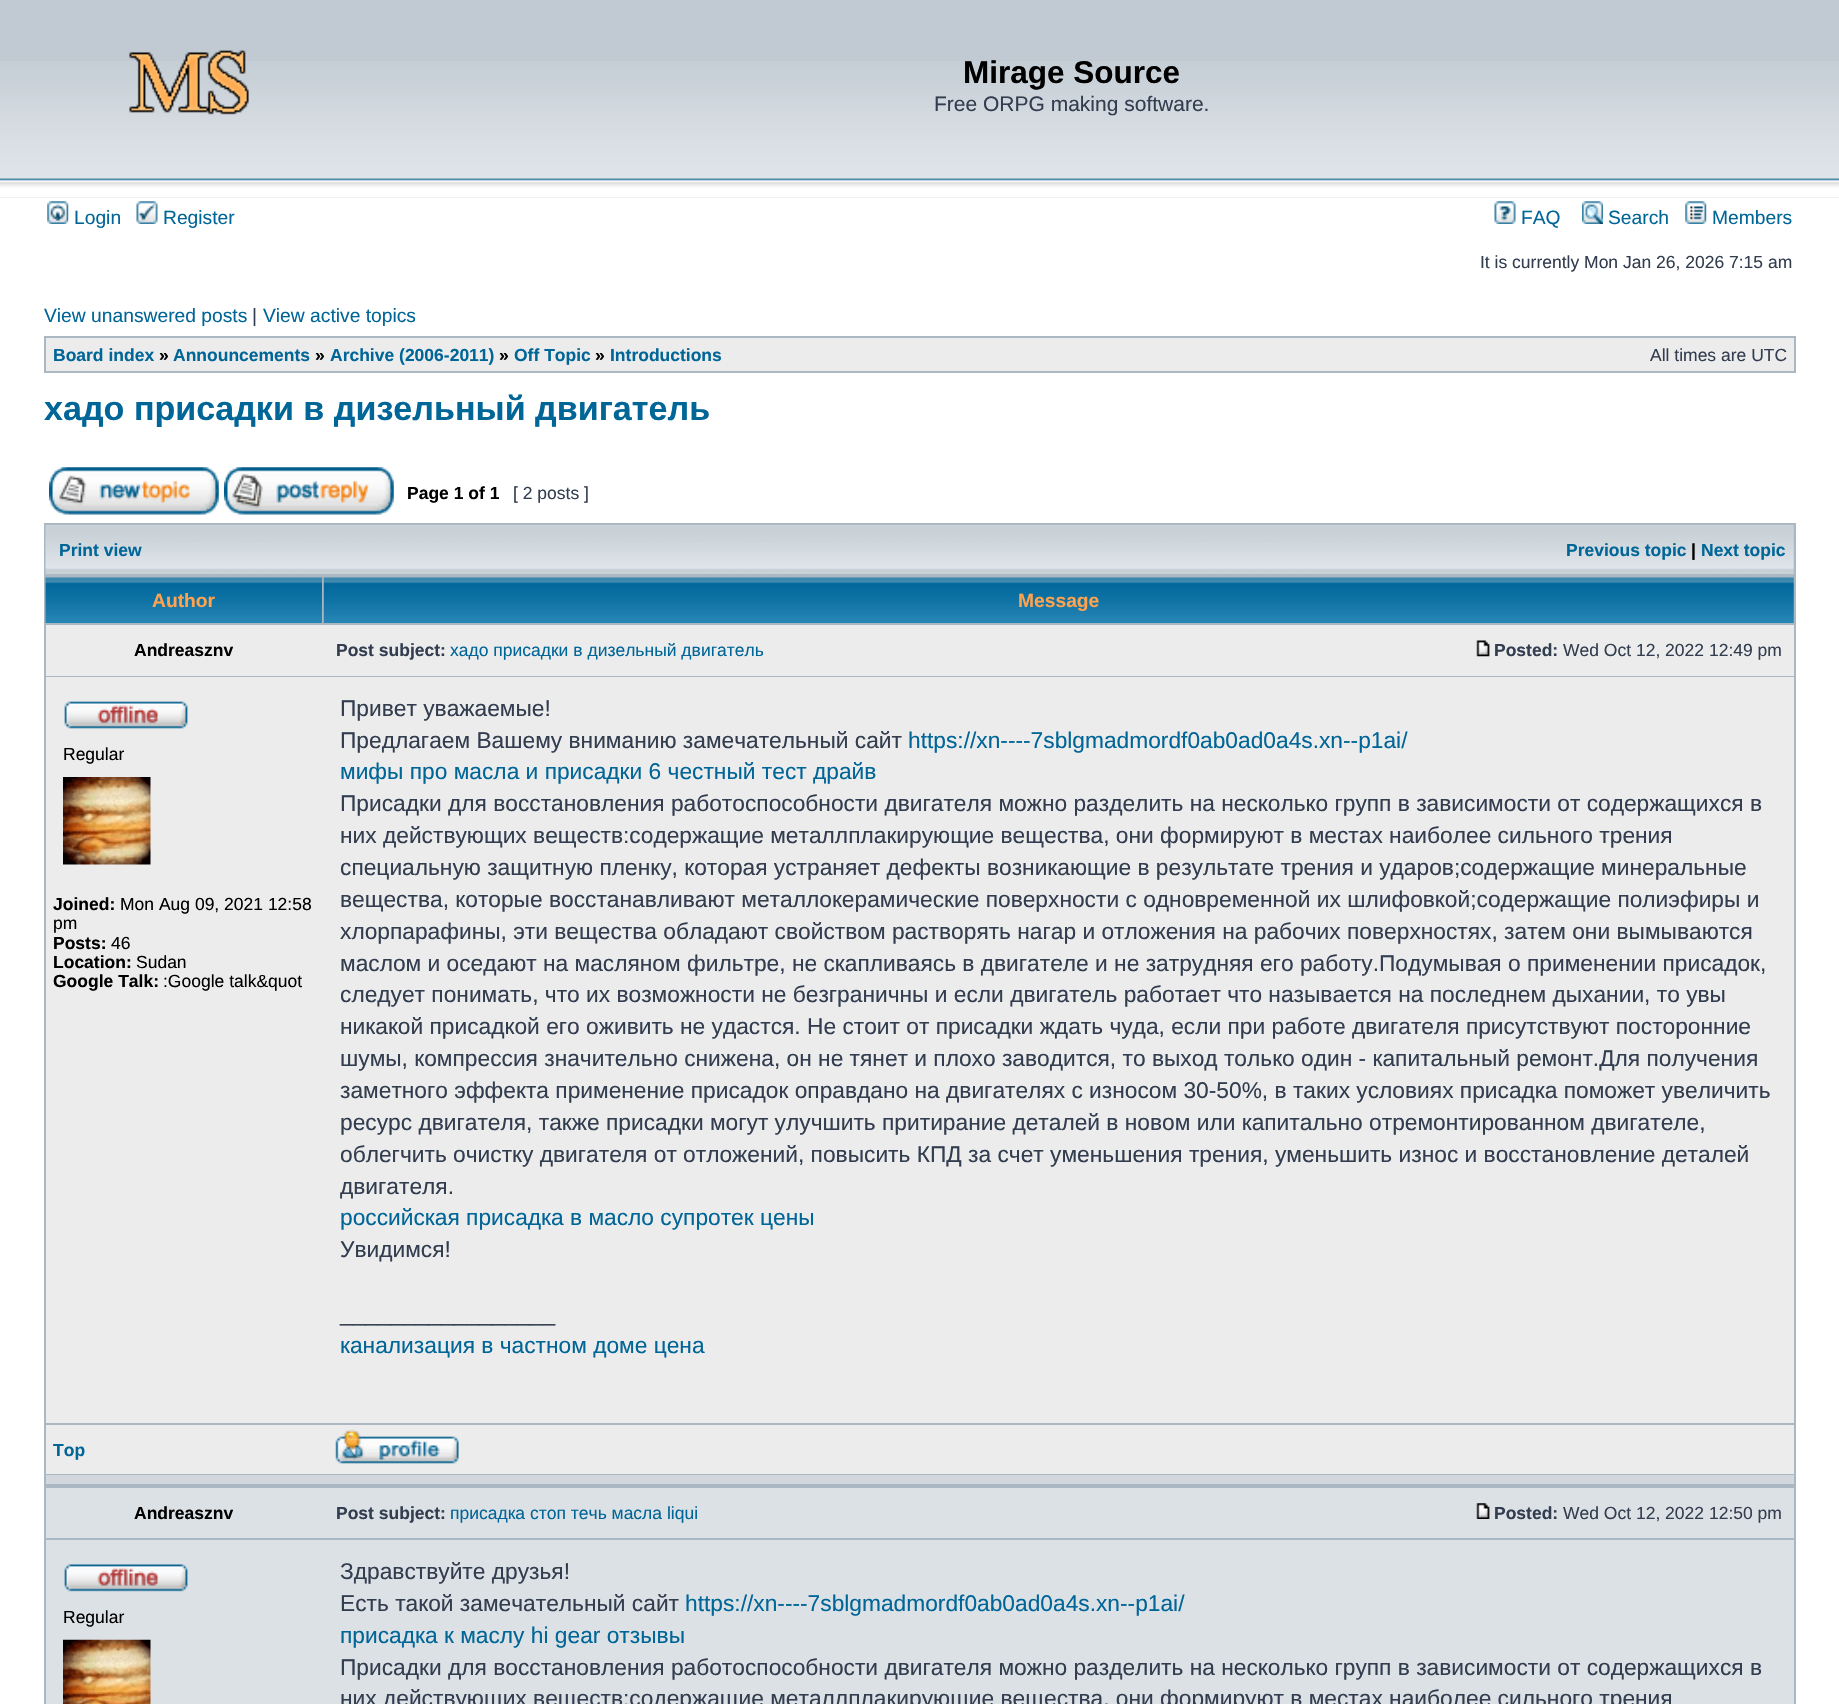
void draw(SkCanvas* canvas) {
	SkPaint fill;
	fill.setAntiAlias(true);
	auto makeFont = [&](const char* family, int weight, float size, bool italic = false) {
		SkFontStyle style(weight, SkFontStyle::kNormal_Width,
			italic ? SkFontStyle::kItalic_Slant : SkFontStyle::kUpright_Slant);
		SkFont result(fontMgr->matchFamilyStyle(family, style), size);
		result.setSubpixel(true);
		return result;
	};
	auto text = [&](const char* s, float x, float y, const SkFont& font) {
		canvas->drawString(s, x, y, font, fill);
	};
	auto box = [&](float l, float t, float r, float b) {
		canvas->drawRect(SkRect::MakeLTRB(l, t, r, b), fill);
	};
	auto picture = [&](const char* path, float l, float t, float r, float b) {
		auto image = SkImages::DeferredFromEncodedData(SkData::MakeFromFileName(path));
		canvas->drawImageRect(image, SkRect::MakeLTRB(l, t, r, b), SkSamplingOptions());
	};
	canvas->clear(0xFFFFFFFF);
	fill.setColor(0xFFC1CAD2);
	box(0, 0, 1839, 198);
	picture("image0.png", 0, 61, 1839, 198);
	picture("image1.png", 129, 50, 249, 115);
	picture("image2.png", 47, 201, 69, 224);
	picture("image3.png", 136, 201, 158, 224);
	picture("image4.png", 1494, 201, 1516, 224);
	picture("image5.png", 1582, 201, 1603, 224);
	picture("image6.png", 1685, 201, 1707, 224);
	fill.setColor(0xFFA9B8C2);
	box(44, 336, 1796, 373);
	fill.setColor(0xFFECECEC);
	box(46, 338, 1794, 371);
	picture("image7.png", 49, 467, 219, 515);
	picture("image8.png", 224, 467, 394, 515);
	fill.setColor(0xFFA9B8C2);
	box(44, 523, 1796, 1704);
	picture("image9.png", 45, 525, 1794, 574);
	picture("image10.png", 45, 577, 322, 623);
	picture("image11.png", 323, 577, 1794, 623);
	fill.setColor(0xFFECECEC);
	box(46, 625, 1794, 676);
	picture("image12.png", 1476, 640, 1490, 657);
	box(46, 677, 1794, 1423);
	picture("image13.png", 64, 701, 188, 729);
	picture("image14.png", 63, 777, 151, 865);
	box(46, 1425, 1794, 1474);
	picture("image15.png", 335, 1429, 459, 1464);
	fill.setColor(0xFFD1D7DC);
	box(46, 1475, 1794, 1484);
	fill.setColor(0xFFDCE1E5);
	box(46, 1488, 1794, 1538);
	picture("image16.png", 1476, 1503, 1490, 1519);
	box(46, 1540, 1794, 1704);
	picture("image17.png", 64, 1564, 188, 1592);
	picture("image18.png", 63, 1639, 151, 1704);
	auto font1 = makeFont("Liberation Sans", 700, 31.5f);
	fill.setColor(0xFF000000);
	text("Mirage Source", 963, 83, font1);
	auto font2 = makeFont("Liberation Sans", 400, 21);
	fill.setColor(0xFF323D4F);
	text("Free ORPG making software.", 934, 111, font2);
	auto font3 = makeFont("Liberation Sans", 400, 19.25f);
	fill.setColor(0xFF006597);
	text("Login", 74, 224, font3);
	text("Register", 163, 224, font3);
	text("FAQ", 1521, 224, font3);
	text("Search", 1608, 224, font3);
	text("Members", 1712, 224, font3);
	auto font4 = makeFont("Liberation Sans", 400, 17.5f);
	fill.setColor(0xFF323D4F);
	text("It is currently Mon Jan 26, 2026 7:15 am", 1480, 268, font4);
	fill.setColor(0xFF006597);
	text("View unanswered posts", 44, 322, font3);
	fill.setColor(0xFF323D4F);
	text("|", 252, 322, font3);
	fill.setColor(0xFF006597);
	text("View active topics", 263, 322, font3);
	auto font5 = makeFont("Liberation Sans", 700, 17.5f);
	text("Board index", 53, 361, font5);
	fill.setColor(0xFF000000);
	text("»", 159, 361, font5);
	fill.setColor(0xFF006597);
	text("Announcements", 173, 361, font5);
	fill.setColor(0xFF000000);
	text("»", 315, 361, font5);
	fill.setColor(0xFF006597);
	text("Archive (2006-2011)", 330, 361, font5);
	fill.setColor(0xFF000000);
	text("»", 499, 361, font5);
	fill.setColor(0xFF006597);
	text("Off Topic", 514, 361, font5);
	fill.setColor(0xFF000000);
	text("»", 595, 361, font5);
	fill.setColor(0xFF006597);
	text("Introductions", 610, 361, font5);
	fill.setColor(0xFF323D4F);
	text("All times are UTC", 1650, 361, font4);
	auto font6 = makeFont("Liberation Sans", 700, 34.1f);
	fill.setColor(0xFF006597);
	text("хадо присадки в дизельный двигатель", 44, 420, font6);
	fill.setColor(0xFF000000);
	text("Page 1 of 1", 407, 499, font5);
	fill.setColor(0xFF323D4F);
	text("[ 2 posts ]", 513, 499, font4);
	fill.setColor(0xFF006597);
	text("Print view", 59, 556, font5);
	text("Previous topic", 1566, 556, font5);
	fill.setColor(0xFF000000);
	text("|", 1691, 556, font5);
	fill.setColor(0xFF006597);
	text("Next topic", 1701, 556, font5);
	auto font7 = makeFont("Liberation Sans", 700, 19.25f);
	fill.setColor(0xFFFFA34F);
	text("Author", 152, 607, font7);
	text("Message", 1018, 607, font7);
	fill.setColor(0xFF000000);
	text("Andreasznv", 134, 656, font5);
	fill.setColor(0xFF323D4F);
	text("Post subject:", 336, 656, font5);
	fill.setColor(0xFF006597);
	text("хадо присадки в дизельный двигатель", 450, 656, font4);
	fill.setColor(0xFF323D4F);
	text("Posted:", 1494, 656, font5);
	text("Wed Oct 12, 2022 12:49 pm", 1563, 656, font4);
	fill.setColor(0xFF000000);
	text("Regular", 63, 760, font4);
	text("Joined:", 53, 910, font5);
	text("Mon Aug 09, 2021 12:58", 120, 910, font4);
	text("pm", 53, 929, font4);
	text("Posts:", 53, 949, font5);
	text("46", 111, 949, font4);
	text("Location:", 53, 968, font5);
	text("Sudan", 136, 968, font4);
	text("Google Talk:", 53, 987, font5);
	text(":Google talk&quot", 163, 987, font4);
	auto font8 = makeFont("Liberation Sans", 400, 22.75f);
	fill.setColor(0xFF323D4F);
	text("Привет уважаемые!", 340, 716, font8);
	text("Предлагаем Вашему вниманию замечательный сайт", 340, 748, font8);
	fill.setColor(0xFF006597);
	text("https://xn----7sblgmadmordf0ab0ad0a4s.xn--p1ai/", 908, 748, font8);
	text("мифы про масла и присадки 6 честный тест драйв", 340, 779, font8);
	fill.setColor(0xFF323D4F);
	text("Присадки для восстановления работоспособности двигателя можно разделить на несколько групп в зависимости от содержащихся в", 340, 811, font8);
	text("них действующих веществ:содержащие металлплакирующие вещества, они формируют в местах наиболее сильного трения", 340, 843, font8);
	text("специальную защитную пленку, которая устраняет дефекты возникающие в результате трения и ударов;содержащие минеральные", 340, 875, font8);
	text("вещества, которые восстанавливают металлокерамические поверхности с одновременной их шлифовкой;содержащие полиэфиры и", 340, 907, font8);
	text("хлорпарафины, эти вещества обладают свойством растворять нагар и отложения на рабочих поверхностях, затем они вымываются", 340, 939, font8);
	text("маслом и оседают на масляном фильтре, не скапливаясь в двигателе и не затрудняя его работу.Подумывая о применении присадок,", 340, 971, font8);
	text("следует понимать, что их возможности не безграничны и если двигатель работает что называется на последнем дыхании, то увы", 340, 1002, font8);
	text("никакой присадкой его оживить не удастся. Не стоит от присадки ждать чуда, если при работе двигателя присутствуют посторонние", 340, 1034, font8);
	text("шумы, компрессия значительно снижена, он не тянет и плохо заводится, то выход только один - капитальный ремонт.Для получения", 340, 1066, font8);
	text("заметного эффекта применение присадок оправдано на двигателях с износом 30-50%, в таких условиях присадка поможет увеличить", 340, 1098, font8);
	text("ресурс двигателя, также присадки могут улучшить притирание деталей в новом или капитально отремонтированном двигателе,", 340, 1130, font8);
	text("облегчить очистку двигателя от отложений, повысить КПД за счет уменьшения трения, уменьшить износ и восстановление деталей", 340, 1162, font8);
	text("двигателя.", 340, 1194, font8);
	fill.setColor(0xFF006597);
	text("российская присадка в масло супротек цены", 340, 1225, font8);
	fill.setColor(0xFF323D4F);
	text("Увидимся!", 340, 1257, font8);
	text("_________________", 340, 1321, font8);
	fill.setColor(0xFF006597);
	text("канализация в частном доме цена", 340, 1353, font8);
	text("Top", 53, 1456, font5);
	fill.setColor(0xFF000000);
	text("Andreasznv", 134, 1519, font5);
	fill.setColor(0xFF323D4F);
	text("Post subject:", 336, 1519, font5);
	fill.setColor(0xFF006597);
	text("присадка стоп течь масла liqui", 450, 1519, font4);
	fill.setColor(0xFF323D4F);
	text("Posted:", 1494, 1519, font5);
	text("Wed Oct 12, 2022 12:50 pm", 1563, 1519, font4);
	fill.setColor(0xFF000000);
	text("Regular", 63, 1623, font4);
	fill.setColor(0xFF323D4F);
	text("Здравствуйте друзья!", 340, 1579, font8);
	text("Есть такой замечательный сайт", 340, 1611, font8);
	fill.setColor(0xFF006597);
	text("https://xn----7sblgmadmordf0ab0ad0a4s.xn--p1ai/", 685, 1611, font8);
	text("присадка к маслу hi gear отзывы", 340, 1643, font8);
	fill.setColor(0xFF323D4F);
	text("Присадки для восстановления работоспособности двигателя можно разделить на несколько групп в зависимости от содержащихся в", 340, 1675, font8);
	text("них действующих веществ:содержащие металлплакирующие вещества, они формируют в местах наиболее сильного трения", 340, 1706, font8);
}
